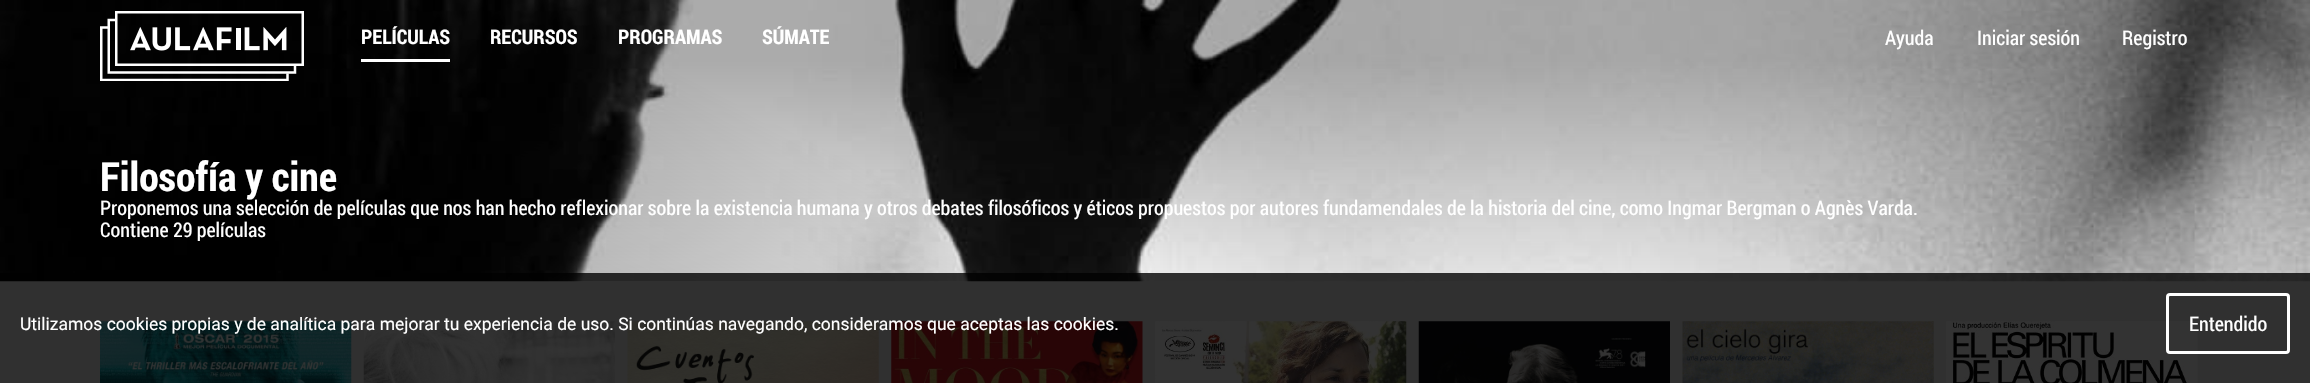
void draw(SkCanvas* canvas) {
	SkPaint fill;
	fill.setAntiAlias(true);
	auto makeFont = [&](const char* family, int weight, float size, bool italic = false) {
		SkFontStyle style(weight, SkFontStyle::kNormal_Width,
			italic ? SkFontStyle::kItalic_Slant : SkFontStyle::kUpright_Slant);
		SkFont result(fontMgr->matchFamilyStyle(family, style), size);
		result.setSubpixel(true);
		return result;
	};
	auto text = [&](const char* s, float x, float y, const SkFont& font) {
		canvas->drawString(s, x, y, font, fill);
	};
	auto box = [&](float l, float t, float r, float b) {
		canvas->drawRect(SkRect::MakeLTRB(l, t, r, b), fill);
	};
	auto picture = [&](const char* path, float l, float t, float r, float b) {
		auto image = SkImages::DeferredFromEncodedData(SkData::MakeFromFileName(path));
		canvas->drawImageRect(image, SkRect::MakeLTRB(l, t, r, b), SkSamplingOptions());
	};
	canvas->clear(0xFFEDEDED);
	picture("image1.png", 0, 0, 2310, 282);
	picture("image0.png", 100, 11, 304, 81);
	fill.setColor(0xFFFFFFFF);
	box(361, 59, 450, 62);
	picture("image2.png", 100, 321, 352, 383);
	picture("image3.png", 363, 321, 615, 383);
	picture("image4.png", 627, 321, 879, 383);
	picture("image5.png", 891, 321, 1143, 383);
	picture("image6.png", 1155, 321, 1407, 383);
	picture("image7.png", 1418, 321, 1670, 383);
	picture("image8.png", 1682, 321, 1934, 383);
	picture("image9.png", 1946, 321, 2198, 383);
	fill.setColor(0xCC000000);
	box(0, 273, 2310, 383);
	fill.setStyle(SkPaint::kStroke_Style);
	fill.setStrokeWidth(3);
	fill.setColor(0xFFFFFFFF);
	canvas->drawRoundRect(SkRect::MakeLTRB(2167.5f, 294.5f, 2288.5f, 352.5f), 2.5f, 2.5f, fill);
	auto font1 = makeFont("Roboto Condensed", 700, 20);
	fill.setStyle(SkPaint::kFill_Style);
	text("PELÍCULAS", 361, 44, font1);
	text("RECURSOS", 490, 44, font1);
	text("PROGRAMAS", 618, 44, font1);
	text("SÚMATE", 762, 44, font1);
	auto font2 = makeFont("Roboto Condensed", 400, 20);
	text("Ayuda", 1885, 45, font2);
	text("Iniciar sesión", 1977, 45, font2);
	text("Registro", 2122, 45, font2);
	auto font3 = makeFont("Roboto", 400, 17.5f);
	text("Utilizamos cookies propias y de analítica para mejorar tu experiencia de uso. Si continúas navegando, consideramos que aceptas las cookies.", 20, 330, font3);
	text("Entendido", 2189, 331, font2);
	auto font4 = makeFont("Roboto Condensed", 700, 40);
	text("Filosofía y cine", 100, 191, font4);
	text("Proponemos una selección de películas que nos han hecho reflexionar sobre la existencia humana y otros debates filosóficos y éticos propuestos por autores fundamendales de la historia del cine, como Ingmar Bergman o Agnès Varda.", 100, 215, font2);
	text("Contiene 29 películas", 100, 237, font2);
}
